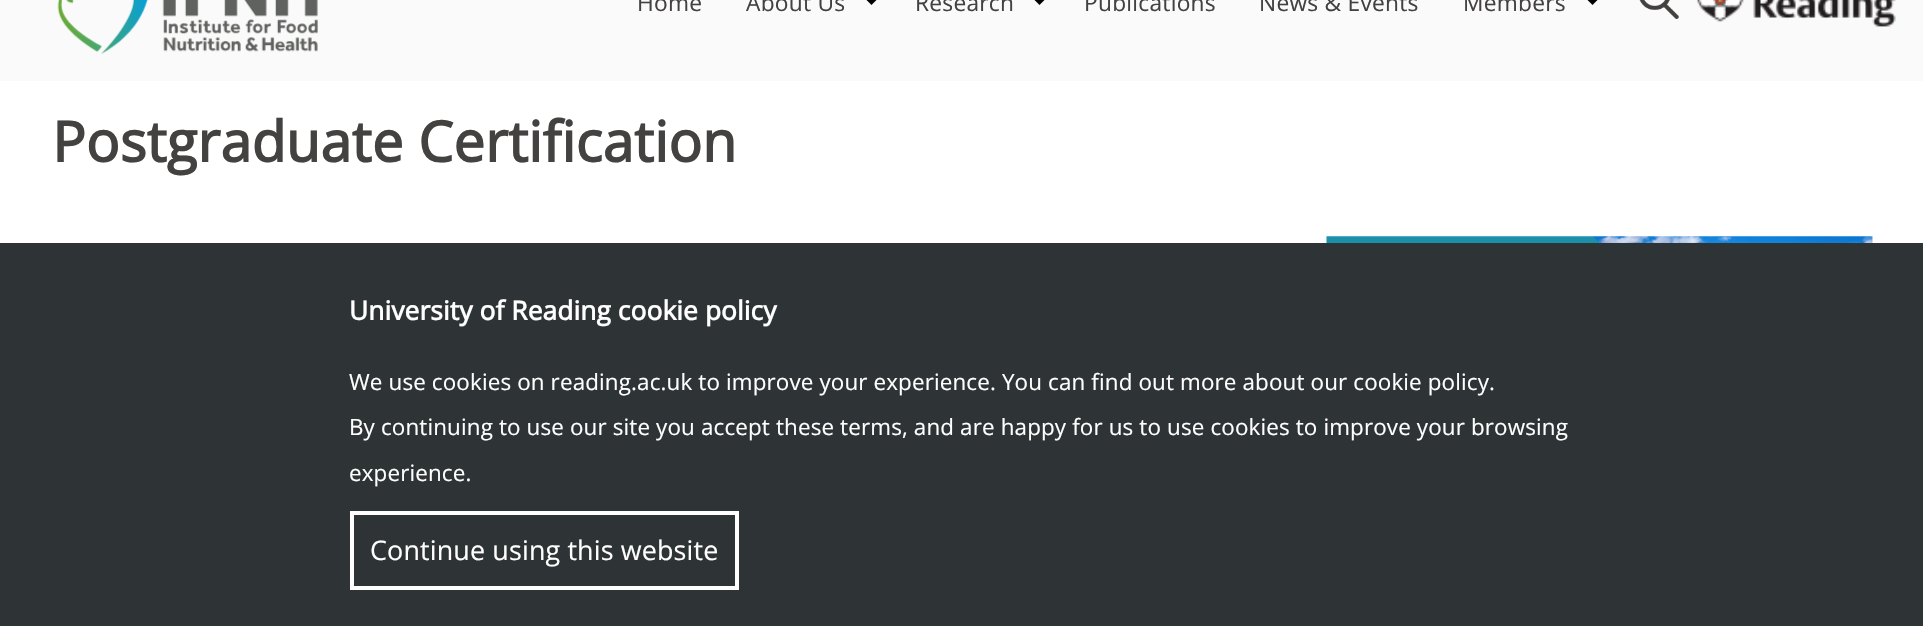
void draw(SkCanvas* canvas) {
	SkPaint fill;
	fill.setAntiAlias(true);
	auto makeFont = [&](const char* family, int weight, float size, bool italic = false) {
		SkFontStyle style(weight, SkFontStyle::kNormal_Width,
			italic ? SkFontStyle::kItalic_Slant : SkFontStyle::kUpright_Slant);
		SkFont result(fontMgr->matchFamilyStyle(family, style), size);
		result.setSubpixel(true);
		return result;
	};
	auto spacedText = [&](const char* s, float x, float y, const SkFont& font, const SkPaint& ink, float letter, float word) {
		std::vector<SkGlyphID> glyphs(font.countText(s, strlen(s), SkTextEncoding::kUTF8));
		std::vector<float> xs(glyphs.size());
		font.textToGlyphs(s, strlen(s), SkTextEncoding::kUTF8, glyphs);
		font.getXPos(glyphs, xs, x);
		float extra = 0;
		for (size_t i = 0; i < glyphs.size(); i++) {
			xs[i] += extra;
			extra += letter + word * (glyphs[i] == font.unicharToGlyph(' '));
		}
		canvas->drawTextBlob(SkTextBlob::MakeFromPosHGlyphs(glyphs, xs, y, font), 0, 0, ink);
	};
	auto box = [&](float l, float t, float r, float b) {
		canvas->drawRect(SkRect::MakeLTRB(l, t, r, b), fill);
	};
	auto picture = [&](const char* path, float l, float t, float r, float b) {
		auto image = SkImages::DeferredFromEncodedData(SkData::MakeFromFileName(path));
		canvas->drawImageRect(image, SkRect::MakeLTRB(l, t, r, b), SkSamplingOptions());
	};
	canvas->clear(0xFFFFFFFF);
	fill.setColor(0xFFFBFAFA);
	box(0, 0, 1923, 81);
	picture("image0.png", 57, 0, 318, 54);
	fill.setColor(0xFF000000);
	canvas->drawPath(SkPathBuilder().moveTo(863, -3.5f).lineTo(880, -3.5f).lineTo(871.5f, 5).close().detach(), fill);
	canvas->drawPath(SkPathBuilder().moveTo(1031, -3.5f).lineTo(1048, -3.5f).lineTo(1039.5f, 5).close().detach(), fill);
	canvas->drawPath(SkPathBuilder().moveTo(1584, -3.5f).lineTo(1601, -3.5f).lineTo(1592.5f, 5).close().detach(), fill);
	picture("image1.png", 1639, 0, 1679, 19);
	picture("image2.png", 1697, 0, 1896, 27);
	picture("image3.png", 1326, 236, 1873, 243);
	fill.setColor(0xFF2E3336);
	box(0, 243, 1923, 626);
	fill.setStyle(SkPaint::kStroke_Style);
	fill.setStrokeWidth(4);
	fill.setColor(0xFFFFFFFF);
	canvas->drawRect(SkRect::MakeLTRB(352, 513, 737, 588), fill);
	auto font1 = makeFont("Open Sans", 400, 22.75f);
	fill.setStyle(SkPaint::kFill_Style);
	fill.setColor(0xFF434241);
	spacedText("Home", 637, 11, font1, fill, 0.25f, 0);
	spacedText("About Us", 746, 11, font1, fill, 0.25f, 0);
	spacedText("Research", 915, 11, font1, fill, 0.25f, 0);
	spacedText("Publications", 1084, 11, font1, fill, 0.25f, 0);
	spacedText("News & Events", 1259, 11, font1, fill, 0.25f, 0);
	spacedText("Members", 1463, 11, font1, fill, 0.25f, 0);
	auto font2 = makeFont("Open Sans", 700, 56);
	spacedText("Postgraduate Certification", 52, 162, font2, fill, 0.14f, 0);
	auto font3 = makeFont("Open Sans", 700, 26.25f);
	fill.setColor(0xFFFFFFFF);
	spacedText("University of Reading cookie policy", 349, 320, font3, fill, 0.14f, 0);
	auto font4 = makeFont("Open Sans", 400, 22.4f);
	spacedText("We use cookies on reading.ac.uk to improve your experience. You can find out more about our cookie policy.", 349, 390, font4, fill, 0.14f, 0);
	spacedText("By continuing to use our site you accept these terms, and are happy for us to use cookies to improve your browsing", 349, 435, font4, fill, 0.14f, 0);
	spacedText("experience.", 349, 481, font4, fill, 0.14f, 0);
	auto font5 = makeFont("Open Sans", 400, 26.9f);
	spacedText("Continue using this website", 370, 560, font5, fill, 0.14f, 0);
}
